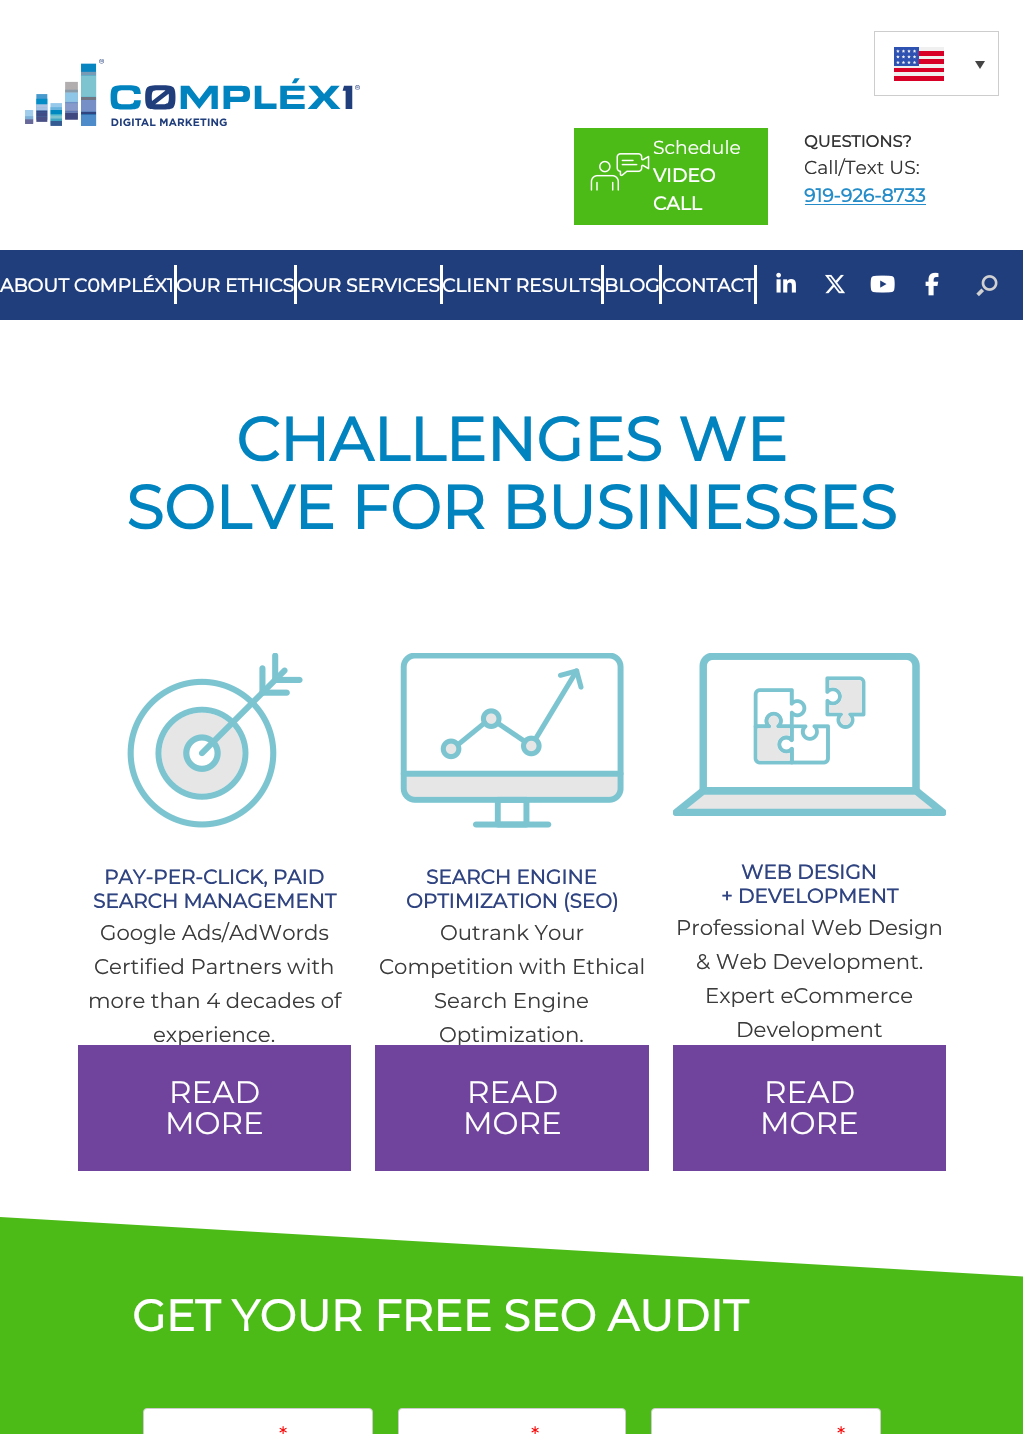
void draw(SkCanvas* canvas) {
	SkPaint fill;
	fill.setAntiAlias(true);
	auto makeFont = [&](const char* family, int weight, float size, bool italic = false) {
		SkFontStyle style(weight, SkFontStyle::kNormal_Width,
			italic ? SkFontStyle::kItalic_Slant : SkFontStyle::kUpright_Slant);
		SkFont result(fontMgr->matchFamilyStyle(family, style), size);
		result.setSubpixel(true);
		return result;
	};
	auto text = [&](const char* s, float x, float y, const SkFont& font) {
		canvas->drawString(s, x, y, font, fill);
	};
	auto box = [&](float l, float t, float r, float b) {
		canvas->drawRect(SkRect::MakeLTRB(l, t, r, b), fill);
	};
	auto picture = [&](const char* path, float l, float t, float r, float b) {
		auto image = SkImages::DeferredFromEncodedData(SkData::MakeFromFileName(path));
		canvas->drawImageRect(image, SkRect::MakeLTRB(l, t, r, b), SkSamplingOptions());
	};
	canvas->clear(0xFFFFFFFF);
	picture("image0.png", 25, 59, 360, 126);
	fill.setStyle(SkPaint::kStroke_Style);
	fill.setStrokeWidth(1);
	fill.setColor(0xFFCDCDCD);
	canvas->drawRect(SkRect::MakeLTRB(874.5f, 31.5f, 998.5f, 95.5f), fill);
	picture("image1.png", 894, 47, 944, 81);
	fill.setStyle(SkPaint::kFill_Style);
	fill.setColor(0xFF444444);
	canvas->drawPath(SkPathBuilder().moveTo(975, 61).lineTo(985, 61).lineTo(980, 69).close().detach(), fill);
	fill.setColor(0xFF4CBB17);
	box(574, 128, 768, 225);
	picture("image2.png", 590, 153, 650, 191);
	fill.setColor(0xFF248CC8);
	box(805, 204, 926, 205);
	fill.setColor(0xFF203D7C);
	box(0, 250, 1023, 320);
	fill.setColor(0xFFFFFFFF);
	box(174, 265, 177, 304);
	box(294, 265, 297, 304);
	box(440, 265, 443, 304);
	box(601, 265, 604, 304);
	box(659, 265, 662, 304);
	box(754, 265, 757, 304);
	picture("image3.png", 776, 272, 796, 293);
	picture("image4.png", 825, 274, 845, 294);
	picture("image5.png", 870, 275, 895, 293);
	picture("image6.png", 925, 272, 939, 296);
	picture("image7.png", 976, 275, 998, 297);
	picture("image8.png", 127, 653, 303, 828);
	picture("image9.png", 400, 653, 624, 828);
	picture("image10.png", 673, 653, 946, 816);
	fill.setColor(0xFF70449C);
	box(673, 1045, 946, 1171);
	fill.setColor(0xFF4CBB17);
	box(0, 1278, 1023, 1434);
	canvas->drawPath(SkPathBuilder().moveTo(-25, 1216).lineTo(-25, 1278).lineTo(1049, 1278).lineTo(-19, 1216).close().detach(), fill);
	fill.setColor(0xFFFFFFFF);
	canvas->drawRoundRect(SkRect::MakeLTRB(143.5f, 1408.5f, 372.5f, 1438.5f), 3.5f, 3.5f, fill);
	fill.setStyle(SkPaint::kStroke_Style);
	fill.setColor(0xFFCCCCCC);
	canvas->drawRoundRect(SkRect::MakeLTRB(143.5f, 1408.5f, 372.5f, 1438.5f), 3.5f, 3.5f, fill);
	fill.setStyle(SkPaint::kFill_Style);
	fill.setColor(0xFFFFFFFF);
	canvas->drawRoundRect(SkRect::MakeLTRB(398.5f, 1408.5f, 625.5f, 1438.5f), 3.5f, 3.5f, fill);
	fill.setStyle(SkPaint::kStroke_Style);
	fill.setColor(0xFFCCCCCC);
	canvas->drawRoundRect(SkRect::MakeLTRB(398.5f, 1408.5f, 625.5f, 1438.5f), 3.5f, 3.5f, fill);
	fill.setStyle(SkPaint::kFill_Style);
	fill.setColor(0xFFFFFFFF);
	canvas->drawRoundRect(SkRect::MakeLTRB(651.5f, 1408.5f, 880.5f, 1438.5f), 3.5f, 3.5f, fill);
	fill.setStyle(SkPaint::kStroke_Style);
	fill.setColor(0xFFCCCCCC);
	canvas->drawRoundRect(SkRect::MakeLTRB(651.5f, 1408.5f, 880.5f, 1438.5f), 3.5f, 3.5f, fill);
	auto font1 = makeFont("Montserrat", 400, 18.75f);
	fill.setStyle(SkPaint::kFill_Style);
	fill.setColor(0xFFFFFFFF);
	text("Schedule", 653, 154, font1);
	auto font2 = makeFont("Montserrat", 700, 18.75f);
	text("VIDEO", 653, 182, font2);
	text("CALL", 653, 210, font2);
	auto font3 = makeFont("Montserrat", 700, 16.25f);
	fill.setColor(0xFF333333);
	text("QUESTIONS?", 804, 147, font3);
	text("Call/Text US:", 804, 174, font1);
	fill.setColor(0xFF248CC8);
	text("919-926-8733", 804, 202, font2);
	fill.setColor(0xFFFFFFFF);
	text("ABOUT C0MPLÉX1", 0, 292, font2);
	text("OUR ETHICS", 176, 292, font2);
	text("OUR SERVICES", 297, 292, font2);
	text("CLIENT RESULTS", 442, 292, font2);
	text("BLOG", 604, 292, font2);
	text("CONTACT", 662, 292, font2);
	auto font4 = makeFont("Montserrat", 700, 61.25f);
	fill.setColor(0xFF0083BF);
	text("CHALLENGES WE", 236, 461, font4);
	text("SOLVE FOR BUSINESSES", 126, 529, font4);
	auto font5 = makeFont("Montserrat", 700, 20);
	fill.setColor(0xFF2F4381);
	text("PAY-PER-CLICK, PAID", 104, 884, font5);
	text("SEARCH MANAGEMENT", 93, 908, font5);
	auto font6 = makeFont("Montserrat", 400, 21.25f);
	fill.setColor(0xFF3B3B3B);
	text("Google Ads/AdWords", 100, 940, font6);
	text("Certified Partners with", 94, 974, font6);
	text("more than 4 decades of", 88, 1008, font6);
	text("experience.", 153, 1042, font6);
	fill.setColor(0xFF70449C);
	box(78, 1045, 351, 1171);
	auto font7 = makeFont("Montserrat", 400, 31);
	fill.setColor(0xFFFFFFFF);
	text("READ", 169, 1103, font7);
	text("MORE", 165, 1134, font7);
	fill.setColor(0xFF2F4381);
	text("SEARCH ENGINE", 426, 884, font5);
	text("OPTIMIZATION (SEO)", 406, 908, font5);
	fill.setColor(0xFF3B3B3B);
	text("Outrank Your", 440, 940, font6);
	text("Competition with Ethical", 379, 974, font6);
	text("Search Engine", 434, 1008, font6);
	text("Optimization.", 439, 1042, font6);
	fill.setColor(0xFF70449C);
	box(375, 1045, 649, 1171);
	fill.setColor(0xFFFFFFFF);
	text("READ", 467, 1103, font7);
	text("MORE", 463, 1134, font7);
	fill.setColor(0xFF2F4381);
	text("WEB DESIGN", 741, 879, font5);
	text("+ DEVELOPMENT", 721, 903, font5);
	fill.setColor(0xFF3B3B3B);
	text("Professional Web Design", 676, 935, font6);
	text("& Web Development.", 696, 969, font6);
	text("Expert eCommerce", 705, 1003, font6);
	text("Development", 736, 1037, font6);
	fill.setColor(0xFFFFFFFF);
	text("READ", 764, 1103, font7);
	text("MORE", 760, 1134, font7);
	auto font8 = makeFont("Montserrat", 700, 43.75f);
	text("GET YOUR FREE SEO AUDIT", 132, 1331, font8);
	fill.setColor(0xFFFF0000);
	text("*", 279, 1442, font6);
	text("*", 531, 1442, font6);
	text("*", 837, 1442, font6);
}
